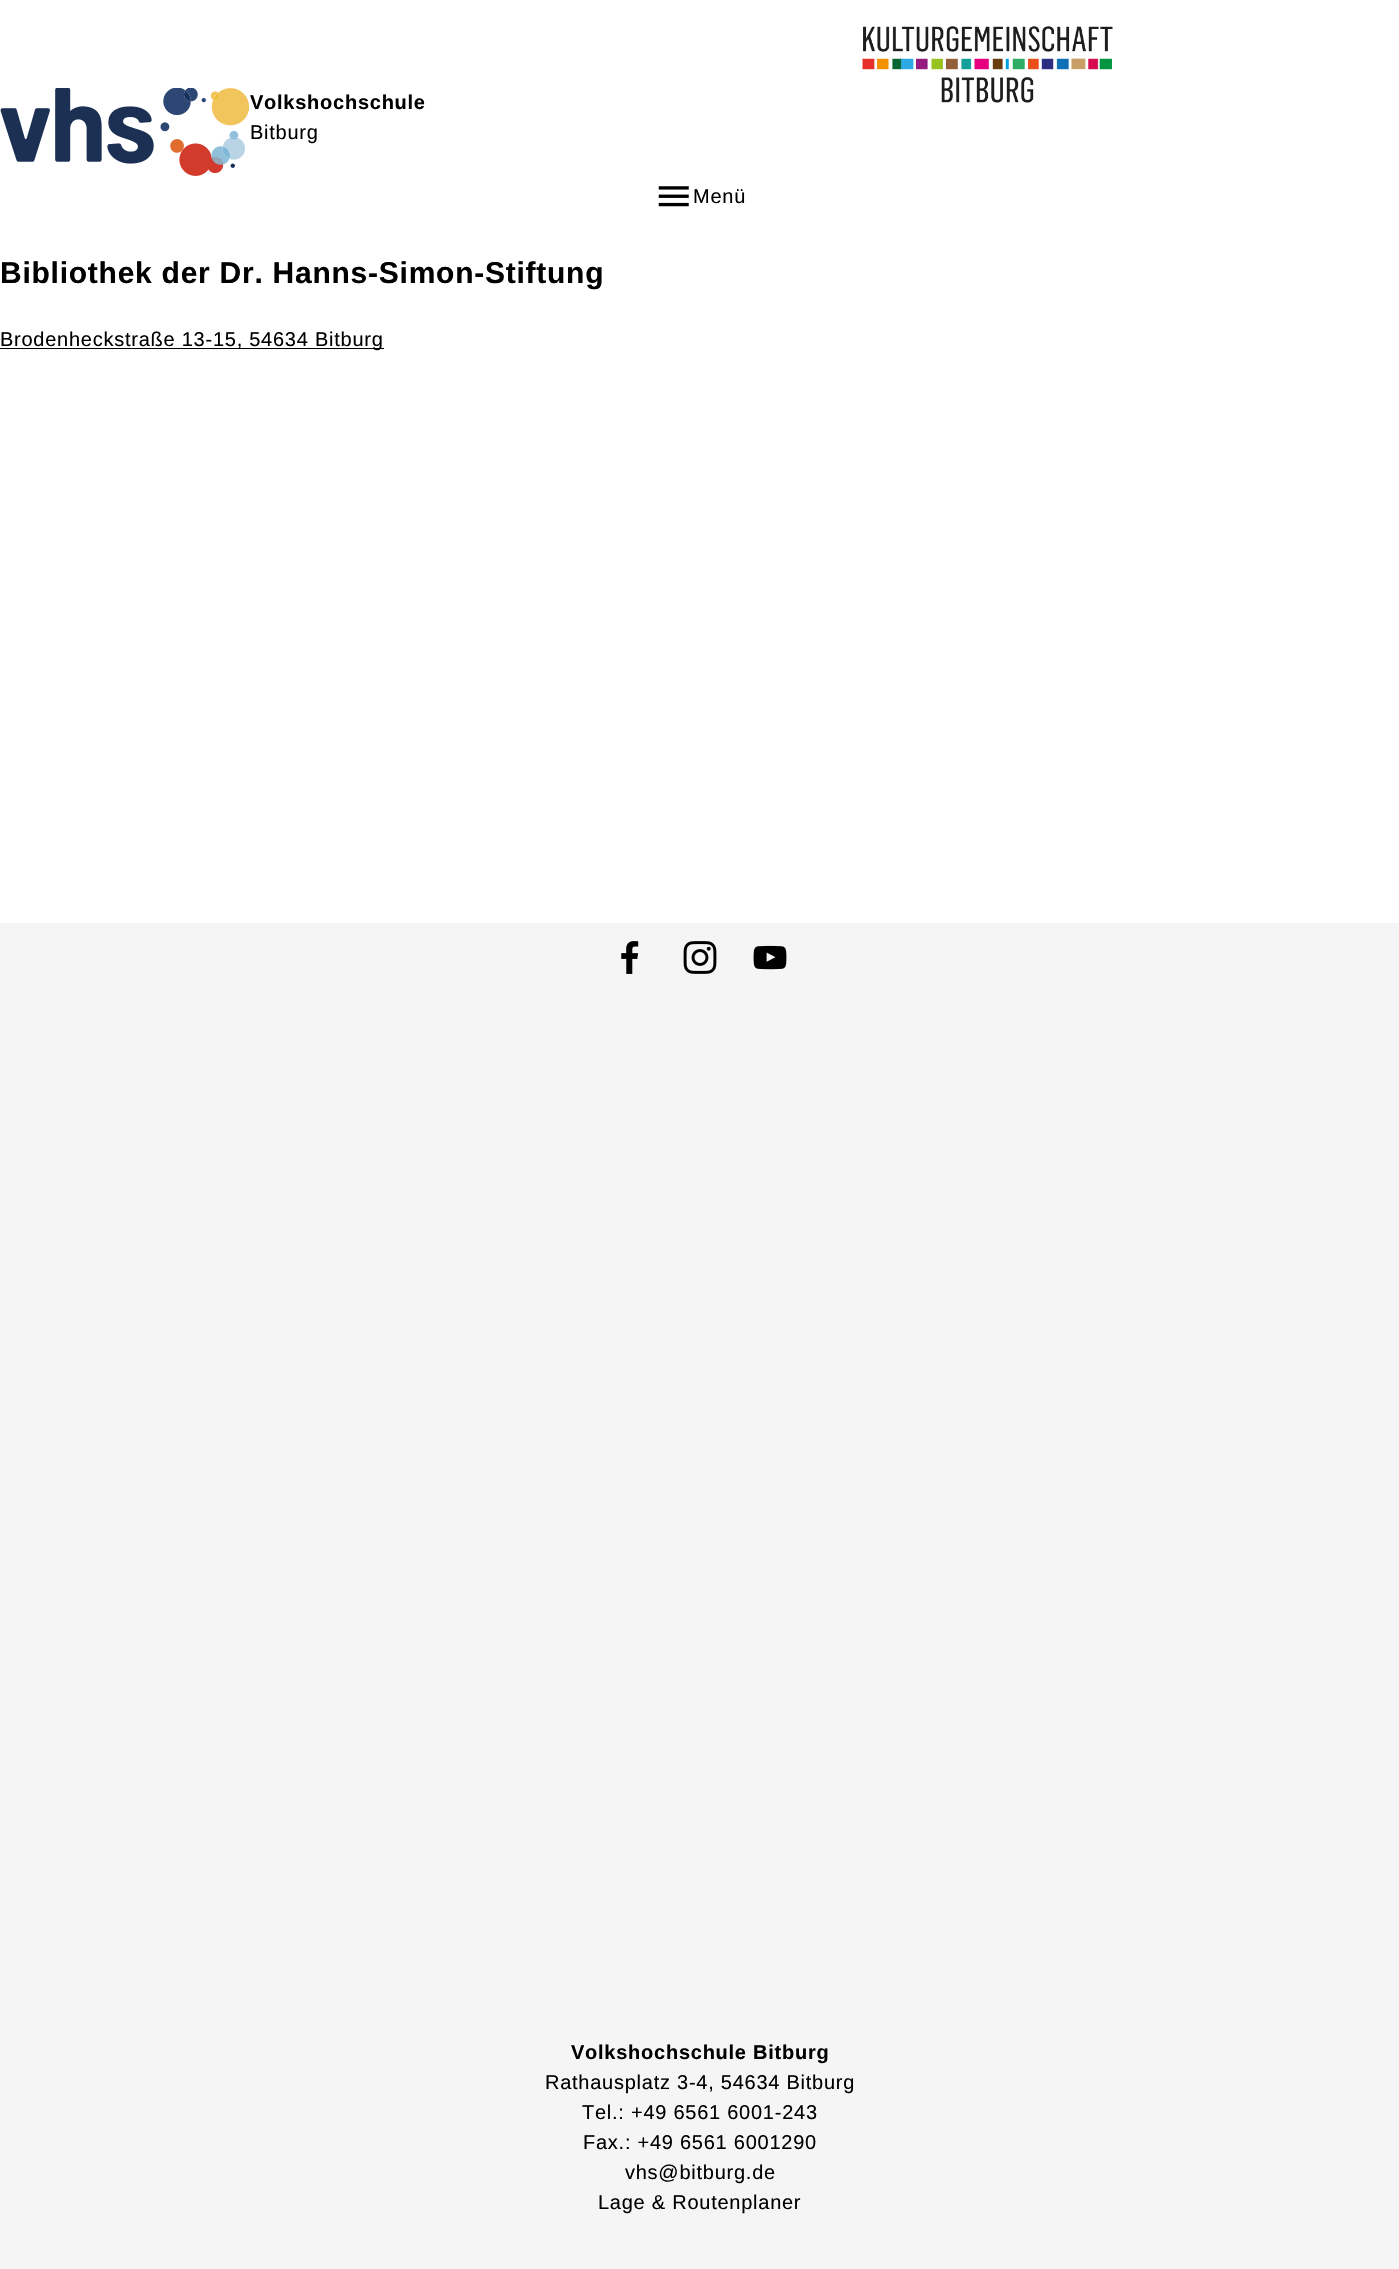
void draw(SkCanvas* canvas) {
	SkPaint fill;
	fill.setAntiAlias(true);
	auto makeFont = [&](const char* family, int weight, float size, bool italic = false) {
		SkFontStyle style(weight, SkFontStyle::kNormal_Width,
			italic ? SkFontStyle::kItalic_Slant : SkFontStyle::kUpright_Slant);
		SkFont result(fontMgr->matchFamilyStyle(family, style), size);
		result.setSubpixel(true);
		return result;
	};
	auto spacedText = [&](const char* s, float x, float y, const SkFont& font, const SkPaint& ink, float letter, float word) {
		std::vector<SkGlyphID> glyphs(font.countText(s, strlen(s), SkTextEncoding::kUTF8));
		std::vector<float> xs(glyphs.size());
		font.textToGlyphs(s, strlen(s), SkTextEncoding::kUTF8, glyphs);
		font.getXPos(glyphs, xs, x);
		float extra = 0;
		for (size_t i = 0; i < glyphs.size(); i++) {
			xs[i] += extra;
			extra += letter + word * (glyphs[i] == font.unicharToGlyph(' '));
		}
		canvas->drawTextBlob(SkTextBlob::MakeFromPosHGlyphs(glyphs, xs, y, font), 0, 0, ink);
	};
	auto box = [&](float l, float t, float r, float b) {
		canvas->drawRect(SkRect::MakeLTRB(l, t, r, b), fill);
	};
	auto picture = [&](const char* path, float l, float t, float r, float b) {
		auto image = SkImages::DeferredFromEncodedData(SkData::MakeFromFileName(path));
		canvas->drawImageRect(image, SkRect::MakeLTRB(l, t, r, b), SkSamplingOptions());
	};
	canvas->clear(0xFFFFFFFF);
	picture("image0.png", 862, 26, 1113, 103);
	picture("image1.png", 0, 88, 250, 176);
	picture("image2.png", 658, 186, 689, 207);
	fill.setColor(0xFF000000);
	box(0, 348, 384, 349);
	fill.setColor(0xFFF5F5F5);
	box(0, 923, 1399, 2269);
	picture("image3.png", 621, 941, 639, 974);
	picture("image4.png", 683, 941, 717, 974);
	picture("image5.png", 753, 945, 787, 970);
	auto font1 = makeFont("Liberation Sans", 700, 20);
	fill.setColor(0xFF000000);
	spacedText("Volkshochschule", 250, 109, font1, fill, 0.75f, 0);
	auto font2 = makeFont("Liberation Sans", 400, 20);
	spacedText("Bitburg", 250, 139, font2, fill, 0.75f, 0);
	spacedText("Menü", 693, 203, font2, fill, 0.75f, 0);
	auto font3 = makeFont("Liberation Sans", 700, 30);
	spacedText("Bibliothek der Dr. Hanns-Simon-Stiftung", 0, 283, font3, fill, 0.75f, 0);
	spacedText("Brodenheckstraße 13-15, 54634 Bitburg", 0, 346, font2, fill, 0.75f, 0);
	spacedText("Volkshochschule Bitburg", 571, 2059, font1, fill, 0.75f, 0);
	spacedText("Rathausplatz 3-4, 54634 Bitburg", 545, 2089, font2, fill, 0.75f, 0);
	spacedText("Tel.: +49 6561 6001-243", 582, 2119, font2, fill, 0.75f, 0);
	spacedText("Fax.: +49 6561 6001290", 583, 2149, font2, fill, 0.75f, 0);
	spacedText("vhs@bitburg.de", 625, 2179, font2, fill, 0.75f, 0);
	spacedText("Lage & Routenplaner", 598, 2209, font2, fill, 0.75f, 0);
}
